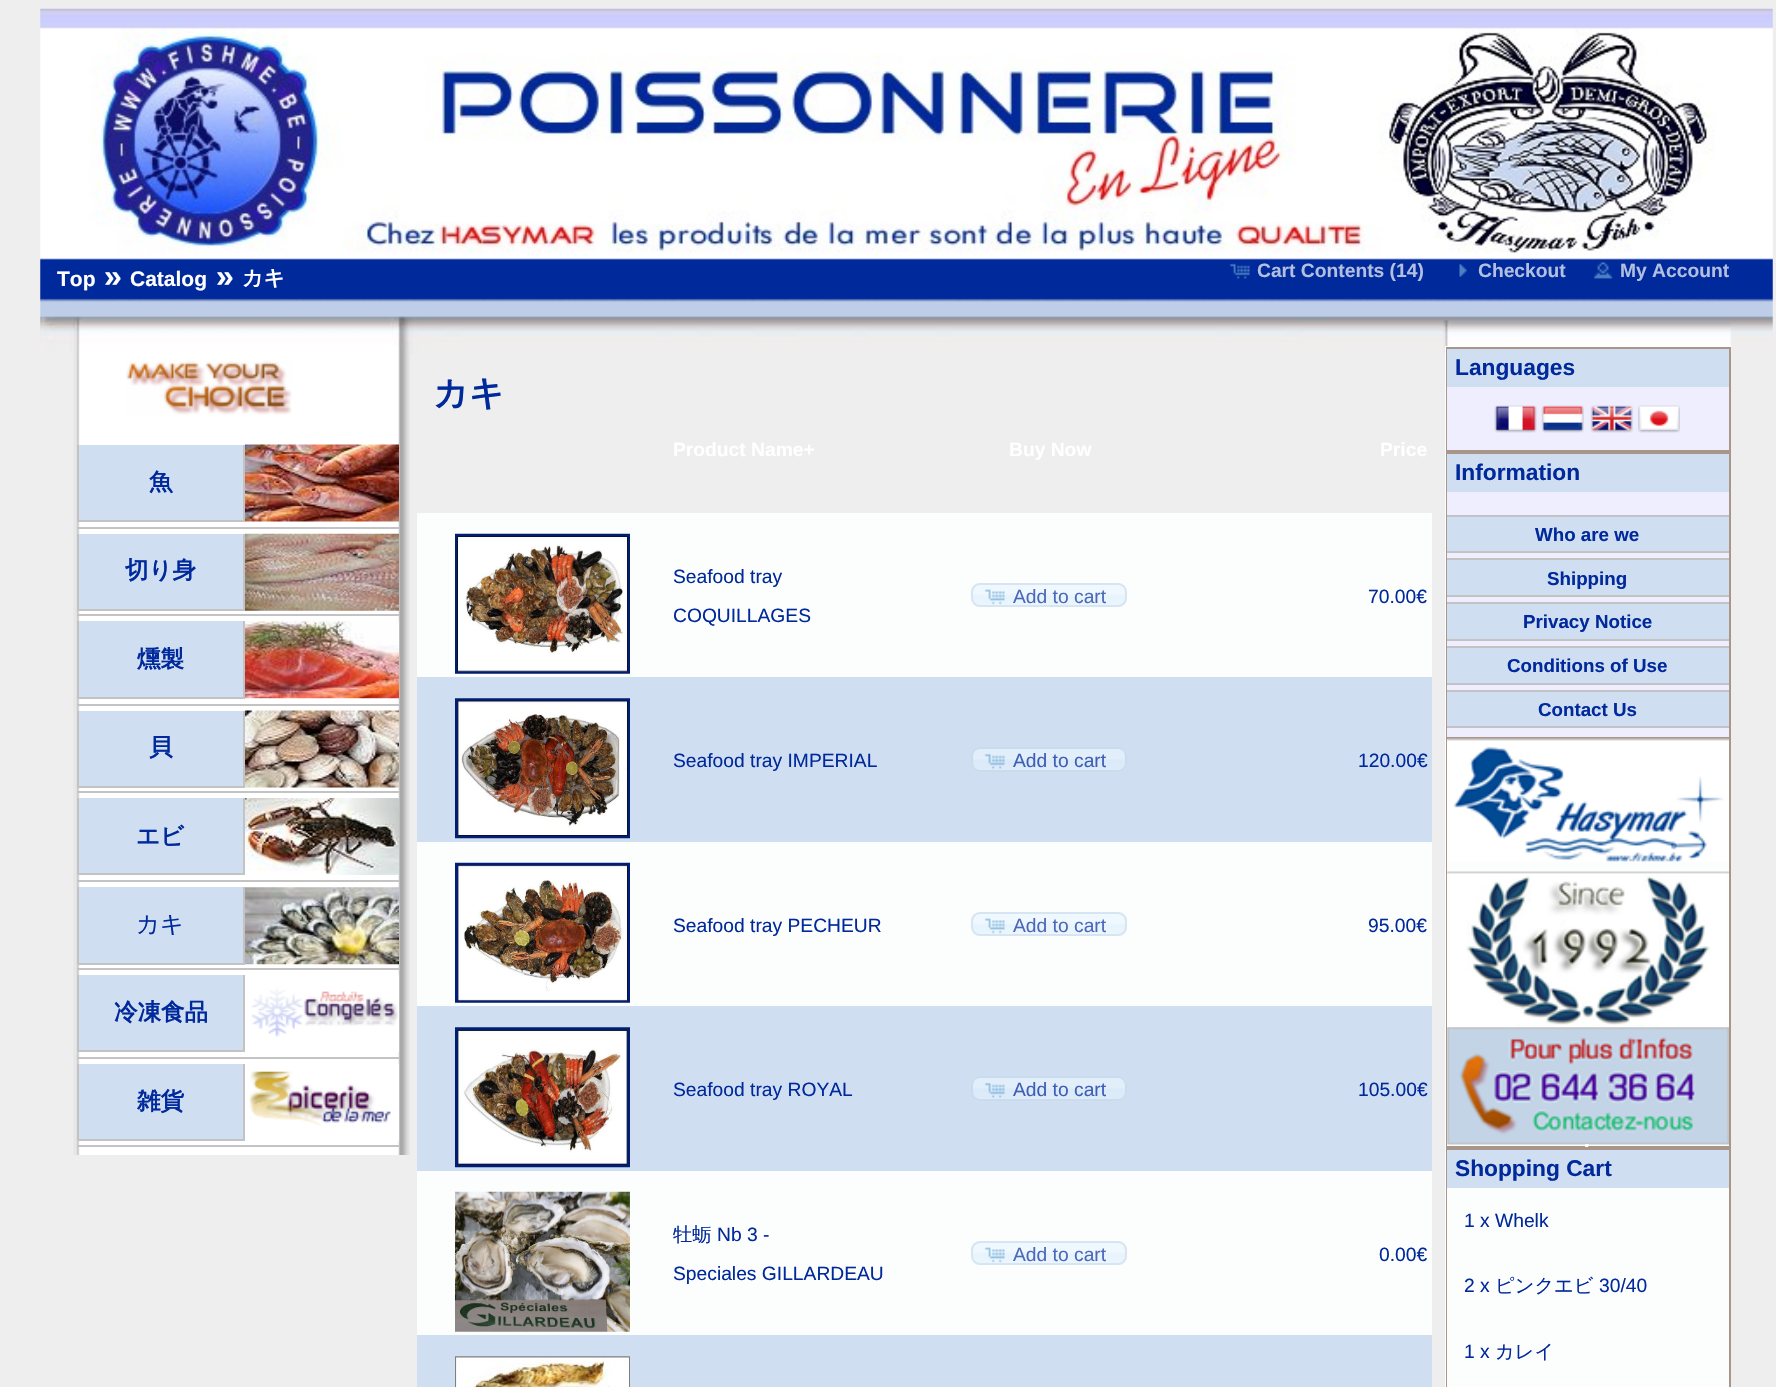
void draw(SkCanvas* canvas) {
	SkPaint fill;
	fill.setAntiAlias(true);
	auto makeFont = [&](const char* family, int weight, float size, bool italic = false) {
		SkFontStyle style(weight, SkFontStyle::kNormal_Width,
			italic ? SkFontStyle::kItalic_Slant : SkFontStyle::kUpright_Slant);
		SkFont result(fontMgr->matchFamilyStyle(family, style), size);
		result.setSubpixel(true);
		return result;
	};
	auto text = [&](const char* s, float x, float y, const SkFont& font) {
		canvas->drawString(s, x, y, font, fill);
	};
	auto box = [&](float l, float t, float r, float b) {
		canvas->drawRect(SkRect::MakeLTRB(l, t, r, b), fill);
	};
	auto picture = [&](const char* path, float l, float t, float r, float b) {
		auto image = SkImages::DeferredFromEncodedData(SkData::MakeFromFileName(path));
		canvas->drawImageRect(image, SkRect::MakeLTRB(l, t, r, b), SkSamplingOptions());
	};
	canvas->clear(0xFFEEEEEE);
	picture("image0.png", 40, 8, 1773, 354);
	picture("image1.png", 1230, 263, 1250, 279);
	picture("image2.png", 1459, 263, 1467, 277);
	picture("image3.png", 1593, 262, 1613, 279);
	picture("image4.png", 73, 347, 410, 1155);
	picture("image5.png", 126, 360, 292, 415);
	fill.setColor(0xFFC3C3C3);
	box(77, 527, 399, 529);
	fill.setColor(0xFFD0DEF2);
	box(79, 445, 243, 520);
	fill.setColor(0xFFC3C3C3);
	box(243, 445, 245, 522);
	box(77, 520, 245, 522);
	box(77, 445, 79, 522);
	picture("image6.png", 245, 444, 399, 522);
	box(77, 614, 399, 616);
	fill.setColor(0xFFD0DEF2);
	box(79, 534, 243, 609);
	fill.setColor(0xFFC3C3C3);
	box(243, 534, 245, 611);
	box(77, 609, 245, 611);
	box(77, 534, 79, 611);
	picture("image7.png", 245, 533, 399, 611);
	box(77, 704, 399, 706);
	fill.setColor(0xFFD0DEF2);
	box(79, 621, 243, 697);
	fill.setColor(0xFFC3C3C3);
	box(243, 621, 245, 698);
	box(77, 697, 245, 699);
	box(77, 621, 79, 698);
	picture("image8.png", 245, 621, 399, 699);
	box(77, 791, 399, 793);
	fill.setColor(0xFFD0DEF2);
	box(79, 711, 243, 786);
	fill.setColor(0xFFC3C3C3);
	box(243, 711, 245, 788);
	box(77, 786, 245, 788);
	box(77, 711, 79, 788);
	picture("image9.png", 245, 710, 399, 788);
	box(77, 880, 399, 882);
	fill.setColor(0xFFD0DEF2);
	box(79, 798, 243, 873);
	fill.setColor(0xFFC3C3C3);
	box(243, 798, 245, 875);
	box(77, 873, 245, 875);
	box(77, 798, 79, 875);
	picture("image10.png", 245, 798, 399, 875);
	box(77, 968, 399, 970);
	fill.setColor(0xFFD0DEF2);
	box(79, 887, 243, 963);
	fill.setColor(0xFFC3C3C3);
	box(243, 887, 245, 964);
	box(77, 963, 245, 965);
	box(77, 887, 79, 964);
	picture("image11.png", 245, 887, 399, 965);
	box(77, 1057, 399, 1059);
	fill.setColor(0xFFD0DEF2);
	box(79, 975, 243, 1050);
	fill.setColor(0xFFC3C3C3);
	box(243, 975, 245, 1052);
	box(77, 1050, 245, 1052);
	box(77, 975, 79, 1052);
	picture("image12.png", 251, 974, 399, 1052);
	box(77, 1145, 399, 1147);
	fill.setColor(0xFFD0DEF2);
	box(79, 1064, 243, 1139);
	fill.setColor(0xFFC3C3C3);
	box(243, 1064, 245, 1141);
	box(77, 1139, 245, 1141);
	box(77, 1064, 79, 1141);
	picture("image13.png", 249, 1064, 399, 1141);
	fill.setColor(0xFFFCFDFD);
	box(417, 513, 1432, 1335);
	picture("image14.png", 455, 533, 630, 674);
	picture("image15.png", 971, 583, 1127, 607);
	fill.setStyle(SkPaint::kStroke_Style);
	fill.setStrokeWidth(2);
	fill.setColor(0xFFD6E5F1);
	canvas->drawRoundRect(SkRect::MakeLTRB(972, 584, 1126, 606), 8, 8, fill);
	picture("image16.png", 984, 589, 1005, 605);
	fill.setStyle(SkPaint::kFill_Style);
	fill.setColor(0xFFD0DEF2);
	box(417, 677, 1432, 842);
	picture("image17.png", 455, 698, 630, 839);
	picture("image18.png", 971, 747, 1127, 772);
	fill.setStyle(SkPaint::kStroke_Style);
	fill.setColor(0xFFC8DCEE);
	canvas->drawRoundRect(SkRect::MakeLTRB(972, 748, 1126, 771), 8, 8, fill);
	picture("image19.png", 984, 753, 1005, 769);
	picture("image20.png", 455, 862, 630, 1003);
	picture("image15.png", 971, 912, 1127, 936);
	fill.setColor(0xFFD6E5F1);
	canvas->drawRoundRect(SkRect::MakeLTRB(972, 913, 1126, 935), 8, 8, fill);
	picture("image16.png", 984, 918, 1005, 934);
	fill.setStyle(SkPaint::kFill_Style);
	fill.setColor(0xFFD0DEF2);
	box(417, 1006, 1432, 1171);
	picture("image21.png", 455, 1027, 630, 1168);
	picture("image18.png", 971, 1076, 1127, 1101);
	fill.setStyle(SkPaint::kStroke_Style);
	fill.setColor(0xFFC8DCEE);
	canvas->drawRoundRect(SkRect::MakeLTRB(972, 1077, 1126, 1100), 8, 8, fill);
	picture("image19.png", 984, 1082, 1005, 1098);
	picture("image22.png", 455, 1191, 630, 1332);
	picture("image15.png", 971, 1241, 1127, 1265);
	fill.setColor(0xFFD6E5F1);
	canvas->drawRoundRect(SkRect::MakeLTRB(972, 1242, 1126, 1264), 8, 8, fill);
	picture("image16.png", 984, 1247, 1005, 1263);
	fill.setStyle(SkPaint::kFill_Style);
	fill.setColor(0xFFD0DEF2);
	box(417, 1335, 1432, 1387);
	picture("image23.png", 455, 1356, 630, 1387);
	fill.setColor(0xFFFFFFFF);
	box(1445, 346, 1731, 1387);
	fill.setColor(0xFFA8968A);
	box(1729, 347, 1731, 1387);
	box(1446, 347, 1447, 1387);
	fill.setColor(0xFFD0DEF2);
	box(1447, 349, 1729, 387);
	fill.setColor(0xFFA8968A);
	box(1447, 347, 1729, 349);
	fill.setColor(0xFFEEEEFF);
	box(1447, 387, 1729, 450);
	fill.setColor(0xFFA8968A);
	box(1447, 450, 1729, 454);
	picture("image24.png", 1494, 405, 1537, 433);
	picture("image25.png", 1541, 405, 1584, 433);
	picture("image26.png", 1590, 405, 1633, 433);
	picture("image27.png", 1638, 405, 1680, 433);
	fill.setColor(0xFFD0DEF2);
	box(1447, 454, 1729, 492);
	fill.setColor(0xFFEEEEFF);
	box(1447, 492, 1729, 737);
	fill.setColor(0xFFA8968A);
	box(1447, 737, 1729, 739);
	fill.setColor(0xFFD0DEF2);
	box(1447, 517, 1729, 551);
	fill.setColor(0xFFC3C3C3);
	box(1447, 515, 1729, 517);
	box(1447, 551, 1729, 553);
	fill.setColor(0xFFD0DEF2);
	box(1447, 560, 1729, 595);
	fill.setColor(0xFFC3C3C3);
	box(1447, 558, 1729, 560);
	box(1447, 595, 1729, 597);
	fill.setColor(0xFFD0DEF2);
	box(1447, 604, 1729, 639);
	fill.setColor(0xFFC3C3C3);
	box(1447, 602, 1729, 604);
	box(1447, 639, 1729, 641);
	fill.setColor(0xFFD0DEF2);
	box(1447, 648, 1729, 683);
	fill.setColor(0xFFC3C3C3);
	box(1447, 646, 1729, 648);
	box(1447, 683, 1729, 685);
	fill.setColor(0xFFD0DEF2);
	box(1447, 692, 1729, 726);
	fill.setColor(0xFFC3C3C3);
	box(1447, 690, 1729, 692);
	box(1447, 726, 1729, 728);
	fill.setColor(0xFFFCFDFD);
	box(1447, 739, 1729, 1146);
	fill.setColor(0xFFA8968A);
	box(1447, 1146, 1729, 1150);
	picture("image28.png", 1447, 738, 1729, 862);
	picture("image29.png", 1447, 871, 1729, 1027);
	picture("image30.png", 1447, 1027, 1729, 1145);
	fill.setColor(0xFFFFFFFF);
	box(1585, 1144, 1588, 1147);
	picture("image31.png", 1588, 1144, 1589, 1147);
	fill.setColor(0xFFD0DEF2);
	box(1447, 1150, 1729, 1188);
	fill.setColor(0xFFFCFDFD);
	box(1447, 1188, 1729, 1387);
	auto font1 = makeFont("Liberation Sans", 700, 21);
	fill.setColor(0xFFFFFFFF);
	text("Top", 57, 286, font1);
	auto font2 = makeFont("Liberation Sans", 700, 32);
	text("»", 104, 287, font2);
	text("Catalog", 130, 286, font1);
	text("»", 216, 287, font2);
	auto font3 = makeFont("WenQuanYi Zen Hei", 700, 21);
	text("カキ", 242, 285, font3);
	auto font4 = makeFont("Liberation Sans", 700, 19.25f);
	fill.setColor(0xFFB3BFE1);
	text("Cart Contents (14)", 1257, 277, font4);
	text("Checkout", 1478, 277, font4);
	text("My Account", 1620, 277, font4);
	auto font5 = makeFont("WenQuanYi Zen Hei", 700, 23.5f);
	fill.setColor(0xFF00299B);
	text("魚", 149, 490, font5);
	text("切り身", 125, 578, font5);
	text("燻製", 137, 667, font5);
	text("貝", 149, 755, font5);
	text("エビ", 136, 844, font5);
	auto font6 = makeFont("WenQuanYi Zen Hei", 500, 23.5f);
	text("カキ", 136, 932, font6);
	text("冷凍食品", 114, 1020, font5);
	text("雑貨", 137, 1109, font5);
	auto font7 = makeFont("WenQuanYi Zen Hei", 700, 35);
	text("カキ", 433, 405, font7);
	fill.setColor(0xFFFFFFFF);
	text("Product Name+", 673, 456, font4);
	text("Buy Now", 1009, 456, font4);
	text("Price", 1380, 456, font4);
	auto font8 = makeFont("Liberation Sans", 400, 19.25f);
	fill.setColor(0xFF00299B);
	text("Seafood tray", 673, 583, font8);
	text("COQUILLAGES", 673, 622, font8);
	fill.setColor(0xFF4C69B8);
	text("Add to cart", 1013, 603, font8);
	fill.setColor(0xFF00299B);
	text("70.00€", 1368, 603, font8);
	text("Seafood tray IMPERIAL", 673, 767, font8);
	fill.setColor(0xFF3E5FB5);
	text("Add to cart", 1013, 767, font8);
	fill.setColor(0xFF00299B);
	text("120.00€", 1358, 767, font8);
	text("Seafood tray PECHEUR", 673, 932, font8);
	fill.setColor(0xFF4C69B8);
	text("Add to cart", 1013, 932, font8);
	fill.setColor(0xFF00299B);
	text("95.00€", 1368, 932, font8);
	text("Seafood tray ROYAL", 673, 1096, font8);
	fill.setColor(0xFF3E5FB5);
	text("Add to cart", 1013, 1096, font8);
	fill.setColor(0xFF00299B);
	text("105.00€", 1358, 1096, font8);
	auto font9 = makeFont("WenQuanYi Zen Hei", 500, 19.25f);
	text("牡蛎", 673, 1241, font9);
	text("Nb 3 -", 717, 1241, font8);
	text("Speciales GILLARDEAU", 673, 1280, font8);
	fill.setColor(0xFF4C69B8);
	text("Add to cart", 1013, 1261, font8);
	fill.setColor(0xFF00299B);
	text("0.00€", 1379, 1261, font8);
	auto font10 = makeFont("Liberation Sans", 700, 22.75f);
	text("Languages", 1455, 375, font10);
	text("Information", 1455, 480, font10);
	auto font11 = makeFont("Liberation Sans", 700, 18.75f);
	text("Who are we", 1535, 541, font11);
	text("Shipping", 1547, 585, font11);
	text("Privacy Notice", 1523, 628, font11);
	text("Conditions of Use", 1507, 672, font11);
	text("Contact Us", 1538, 716, font11);
	text("Shopping Cart", 1455, 1176, font10);
	text("1 x Whelk", 1464, 1227, font8);
	text("2 x", 1464, 1292, font8);
	text("ピンクエビ", 1495, 1292, font9);
	text("30/40", 1599, 1292, font8);
	text("1 x", 1464, 1358, font8);
	text("カレイ", 1495, 1358, font9);
}
